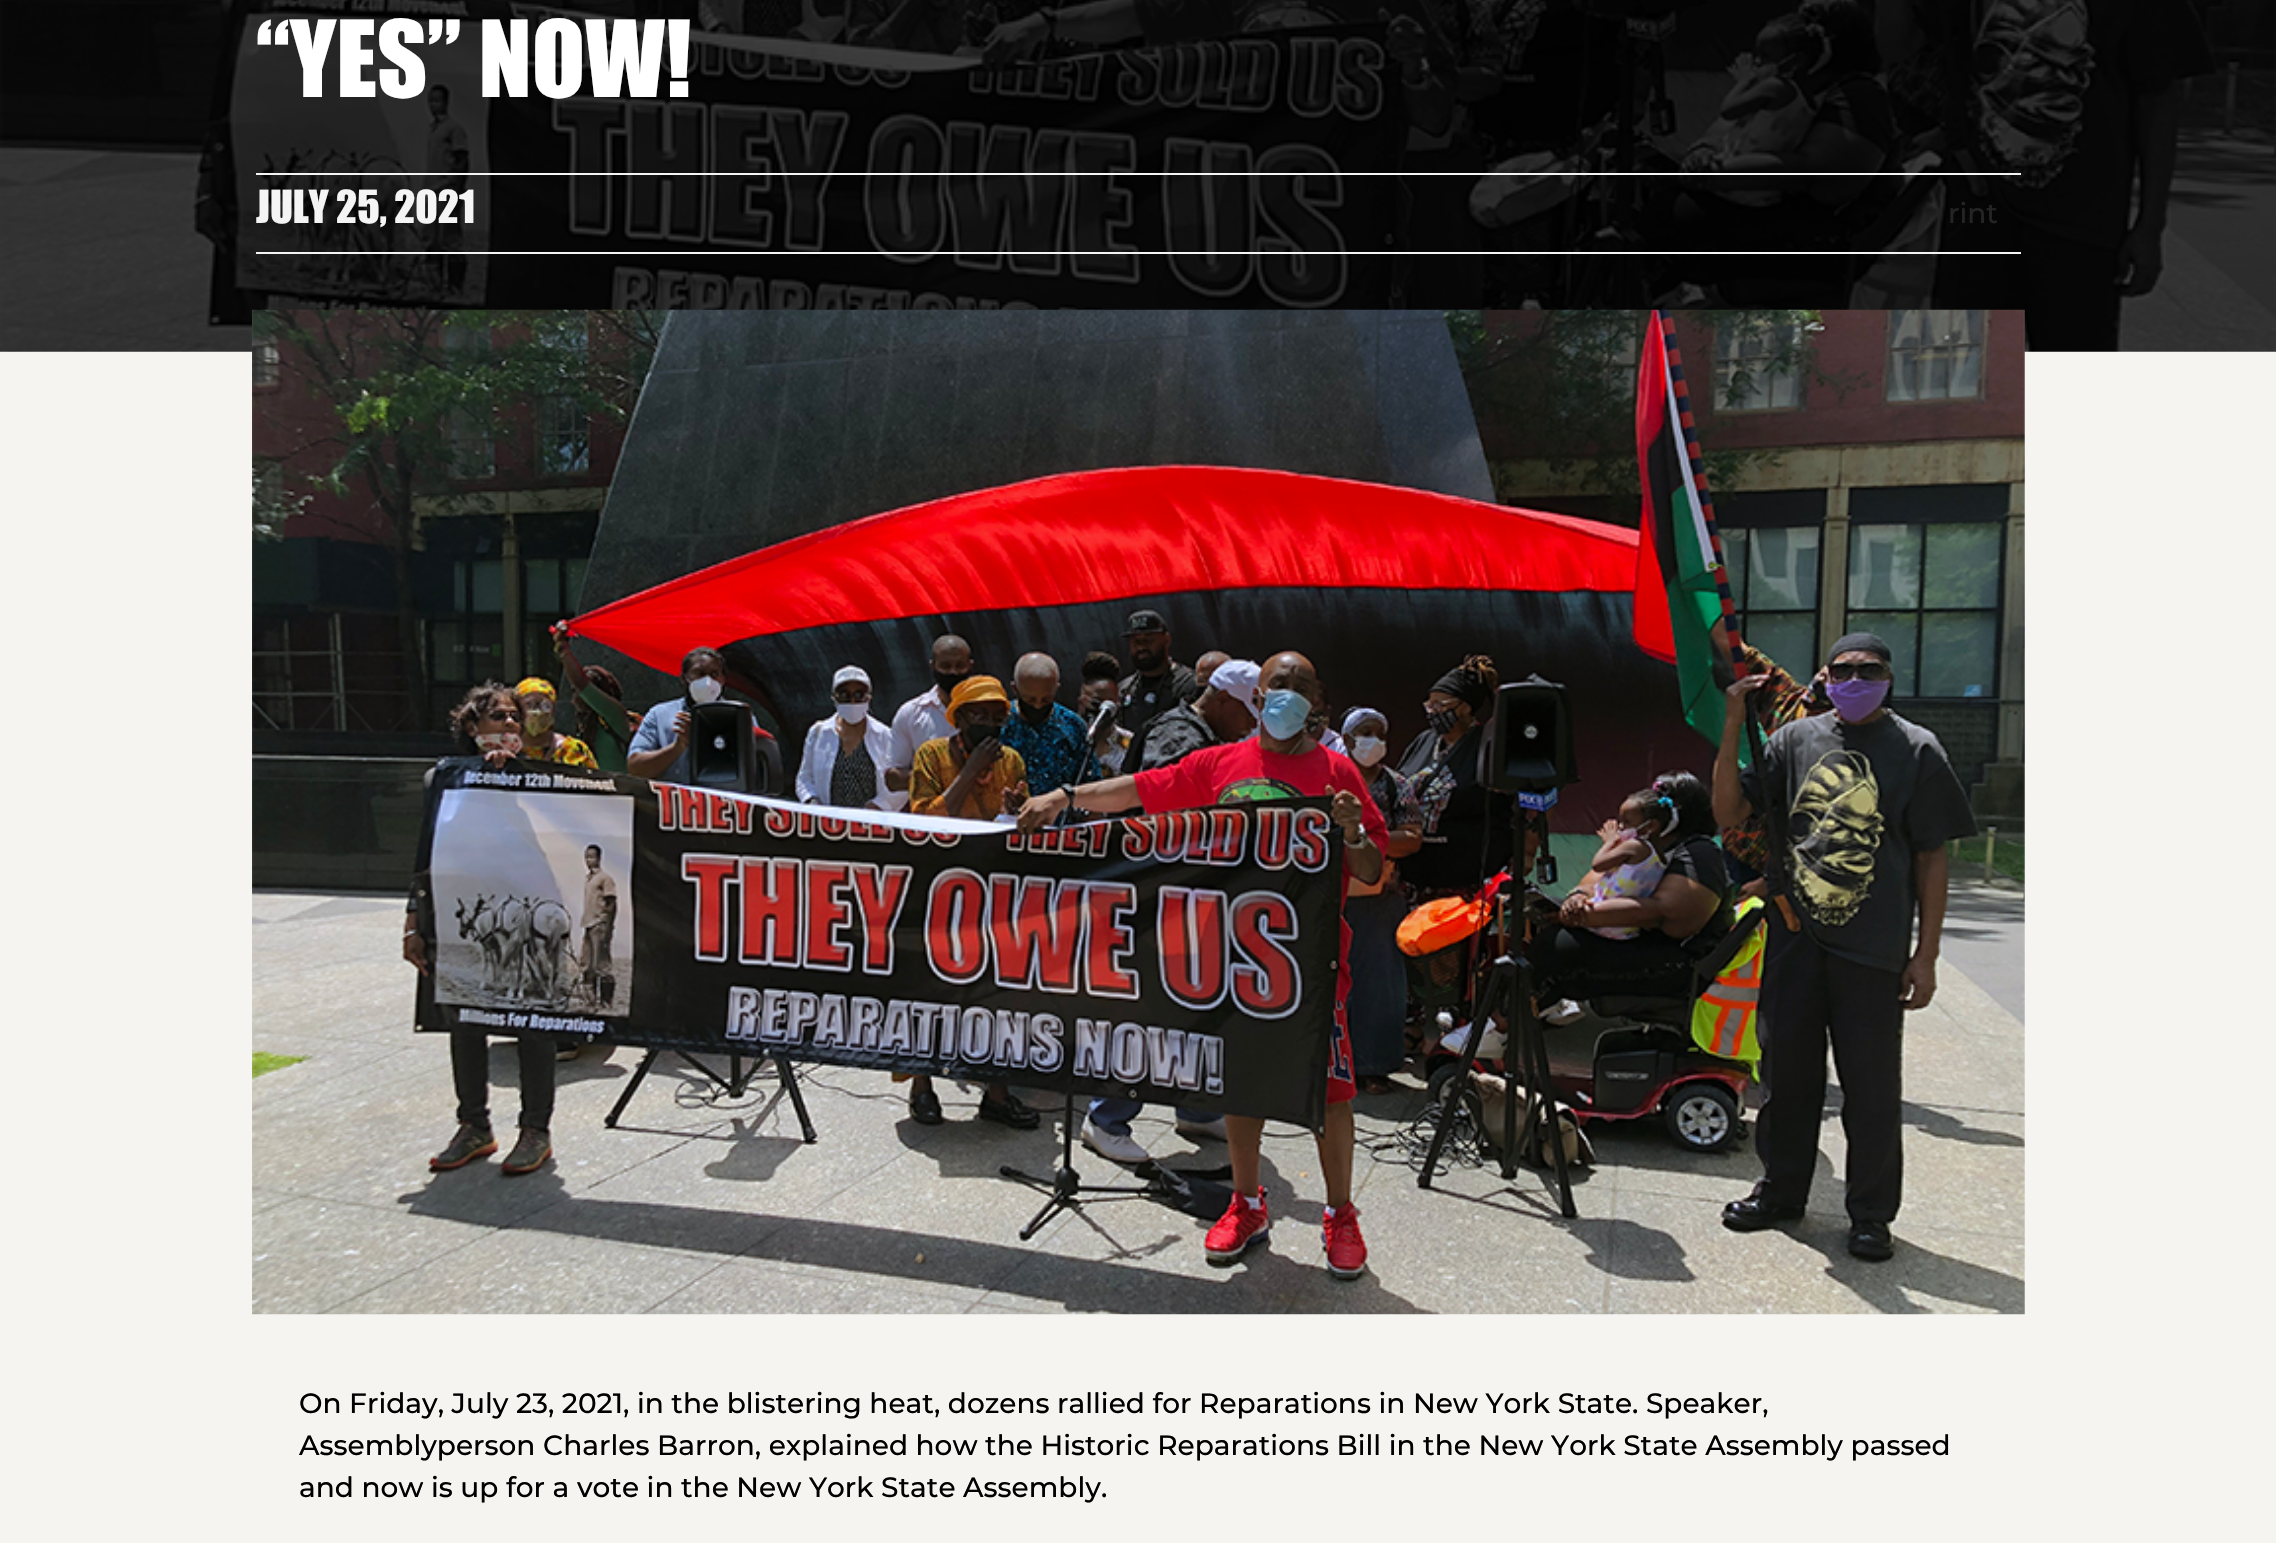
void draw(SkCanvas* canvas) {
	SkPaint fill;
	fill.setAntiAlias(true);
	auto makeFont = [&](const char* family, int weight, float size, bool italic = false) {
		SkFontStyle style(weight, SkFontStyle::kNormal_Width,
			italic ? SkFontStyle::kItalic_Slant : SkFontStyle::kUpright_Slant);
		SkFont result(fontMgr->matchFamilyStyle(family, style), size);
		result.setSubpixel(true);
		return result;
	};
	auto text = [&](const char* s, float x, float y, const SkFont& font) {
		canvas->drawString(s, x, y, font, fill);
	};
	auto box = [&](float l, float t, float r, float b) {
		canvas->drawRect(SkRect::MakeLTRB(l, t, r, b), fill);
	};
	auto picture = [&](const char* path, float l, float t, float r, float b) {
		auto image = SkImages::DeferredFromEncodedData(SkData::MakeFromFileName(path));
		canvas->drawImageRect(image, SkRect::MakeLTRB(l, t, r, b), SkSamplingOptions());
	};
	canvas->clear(0xFFFFFFFF);
	picture("image0.png", 0, 0, 2276, 352);
	fill.setColor(0xFFF4F4F4);
	box(256, 173, 2021, 175);
	box(256, 252, 2021, 254);
	fill.setColor(0xFFF5F4F0);
	box(0, 352, 2276, 1543);
	picture("image1.png", 252, 309, 2025, 1315);
	auto font1 = makeFont("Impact", 400, 98);
	fill.setColor(0xFFFFFFFF);
	text("“YES” NOW!", 256, 97, font1);
	auto font2 = makeFont("Impact", 400, 42);
	fill.setColor(0xFFF4F4F4);
	text("JULY 25, 2021", 256, 223, font2);
	auto font3 = makeFont("Montserrat", 500, 28);
	fill.setColor(0xFF242424);
	text("rint", 1948, 223, font3);
	fill.setColor(0xFF000000);
	text("On Friday, July 23, 2021, in the blistering heat, dozens rallied for Reparations in New York State. Speaker,", 299, 1413, font3);
	text("Assemblyperson Charles Barron, explained how the Historic Reparations Bill in the New York State Assembly passed", 299, 1455, font3);
	text("and now is up for a vote in the New York State Assembly.", 299, 1497, font3);
}
